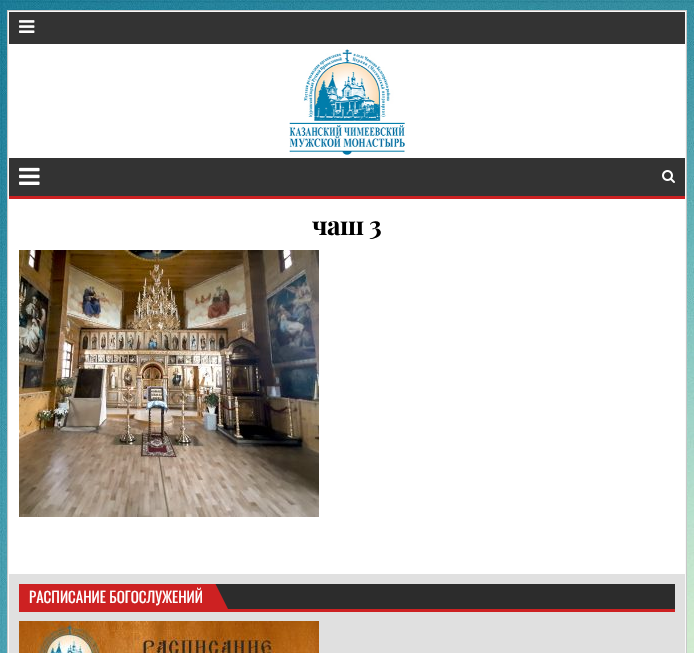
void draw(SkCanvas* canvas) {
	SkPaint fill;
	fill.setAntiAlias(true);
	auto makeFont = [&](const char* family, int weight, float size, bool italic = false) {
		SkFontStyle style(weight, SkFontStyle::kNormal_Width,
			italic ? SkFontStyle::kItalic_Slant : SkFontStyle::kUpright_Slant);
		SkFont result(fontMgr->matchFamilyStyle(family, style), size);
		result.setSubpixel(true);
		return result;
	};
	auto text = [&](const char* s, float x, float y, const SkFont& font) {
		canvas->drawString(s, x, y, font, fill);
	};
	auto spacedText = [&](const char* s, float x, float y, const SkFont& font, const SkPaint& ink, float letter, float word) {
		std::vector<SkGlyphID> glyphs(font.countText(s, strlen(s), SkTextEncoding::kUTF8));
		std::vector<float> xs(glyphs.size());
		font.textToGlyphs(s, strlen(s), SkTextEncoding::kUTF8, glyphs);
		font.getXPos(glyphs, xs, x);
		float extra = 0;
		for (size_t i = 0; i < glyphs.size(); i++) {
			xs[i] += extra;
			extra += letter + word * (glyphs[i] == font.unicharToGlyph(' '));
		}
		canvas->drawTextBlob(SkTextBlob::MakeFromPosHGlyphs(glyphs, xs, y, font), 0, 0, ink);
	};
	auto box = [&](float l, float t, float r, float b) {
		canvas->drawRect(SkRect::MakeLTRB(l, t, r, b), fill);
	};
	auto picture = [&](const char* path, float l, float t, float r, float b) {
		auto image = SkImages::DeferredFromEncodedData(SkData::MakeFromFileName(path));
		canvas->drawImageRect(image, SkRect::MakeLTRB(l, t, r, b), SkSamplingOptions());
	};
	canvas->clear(0xFFFFFFFF);
	picture("image0.png", 0, 0, 694, 653);
	fill.setStyle(SkPaint::kStroke_Style);
	fill.setStrokeWidth(1);
	fill.setColor(0xFFC8C8C8);
	canvas->drawRect(SkRect::MakeLTRB(7.5f, 10.5f, 686.5f, 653.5f), fill);
	fill.setColor(0xFFF9F9F9);
	canvas->drawRect(SkRect::MakeLTRB(8.5f, 11.5f, 685.5f, 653.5f), fill);
	fill.setStyle(SkPaint::kFill_Style);
	fill.setColor(0xFF333333);
	box(9, 12, 685, 44);
	picture("image1.png", 19, 20, 35, 33);
	fill.setColor(0xFFFFFFFF);
	box(9, 44, 685, 158);
	picture("image2.png", 289, 49, 407, 155);
	fill.setColor(0xFF333333);
	box(9, 158, 685, 196);
	fill.setColor(0xFFCD2122);
	box(9, 196, 685, 199);
	picture("image3.png", 19, 167, 40, 185);
	picture("image4.png", 662, 170, 675, 183);
	fill.setColor(0xFFFFFFFF);
	box(9, 199, 685, 574);
	picture("image5.png", 19, 250, 319, 517);
	fill.setColor(0xFFE0E0E0);
	box(9, 574, 685, 653);
	fill.setColor(0xFF2C2C2C);
	box(215, 584, 675, 609);
	fill.setColor(0xFFCD2122);
	box(19, 609, 675, 612);
	box(19, 584, 213, 609);
	canvas->save();
	canvas->clipRect(SkRect::MakeLTRB(19, 584, 675, 609));
	canvas->drawPath(SkPathBuilder().moveTo(213, 609).lineTo(213, 579).lineTo(228, 609).close().detach(), fill);
	canvas->restore();
	picture("image6.png", 19, 621, 319, 653);
	auto font1 = makeFont("Playfair Display", 700, 26);
	fill.setColor(0xFF000000);
	spacedText("чаш 3", 312, 235, font1, fill, -0.5f, 0);
	auto font2 = makeFont("Oswald", 400, 15);
	fill.setColor(0xFFFFFFFF);
	text("РАСПИСАНИЕ БОГОСЛУЖЕНИЙ", 29, 603, font2);
}
